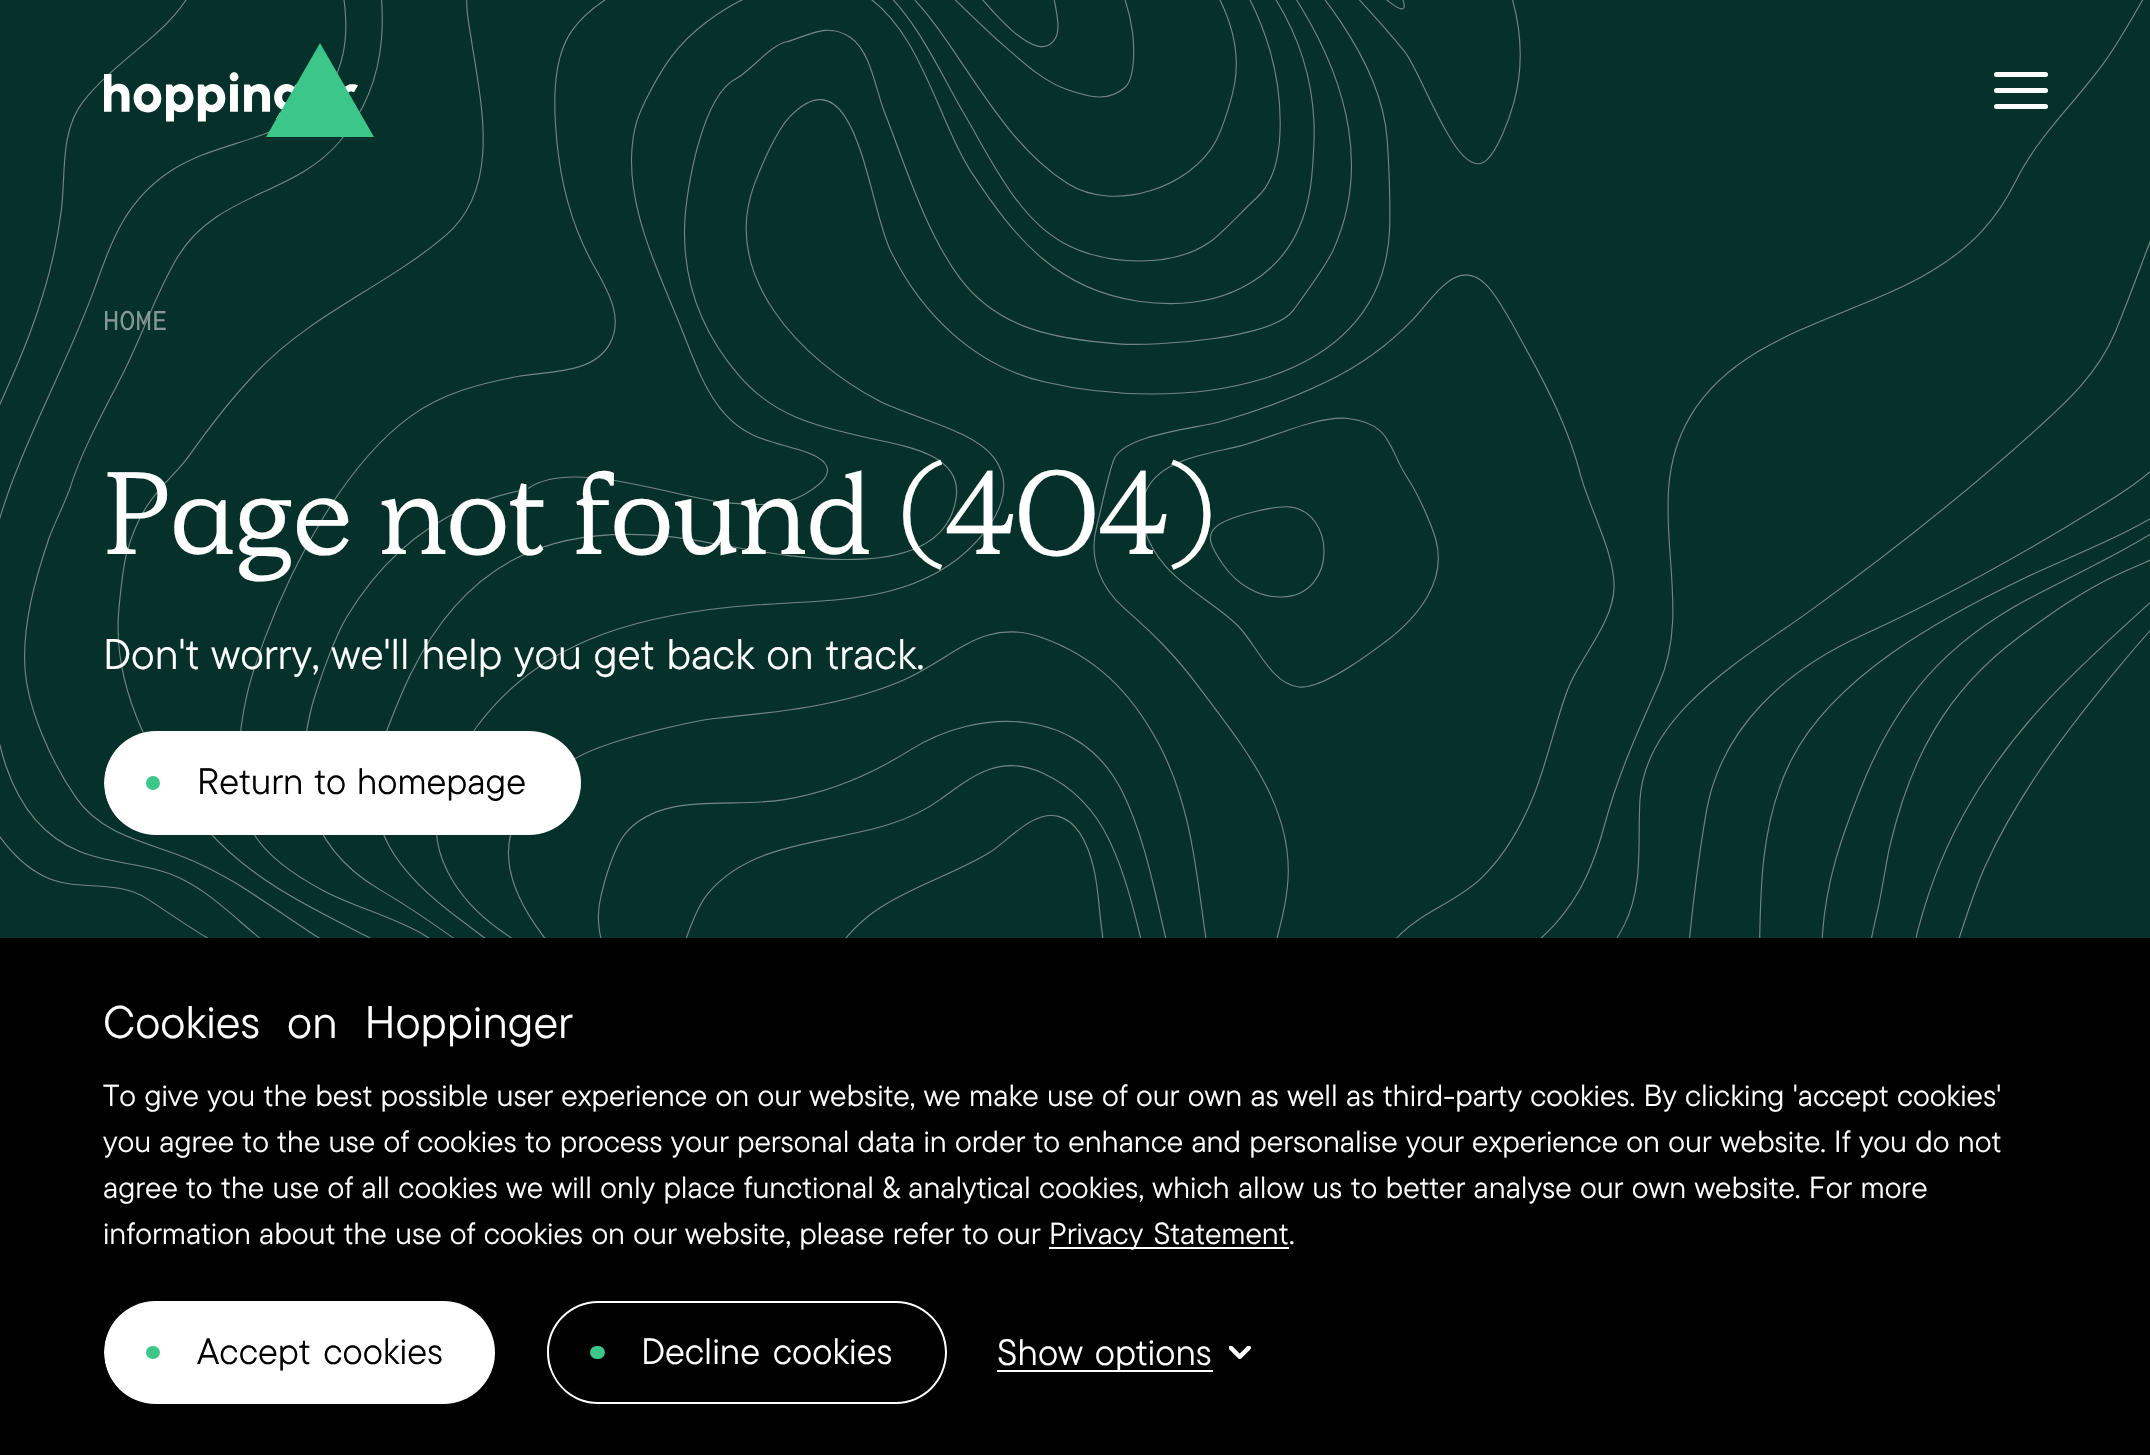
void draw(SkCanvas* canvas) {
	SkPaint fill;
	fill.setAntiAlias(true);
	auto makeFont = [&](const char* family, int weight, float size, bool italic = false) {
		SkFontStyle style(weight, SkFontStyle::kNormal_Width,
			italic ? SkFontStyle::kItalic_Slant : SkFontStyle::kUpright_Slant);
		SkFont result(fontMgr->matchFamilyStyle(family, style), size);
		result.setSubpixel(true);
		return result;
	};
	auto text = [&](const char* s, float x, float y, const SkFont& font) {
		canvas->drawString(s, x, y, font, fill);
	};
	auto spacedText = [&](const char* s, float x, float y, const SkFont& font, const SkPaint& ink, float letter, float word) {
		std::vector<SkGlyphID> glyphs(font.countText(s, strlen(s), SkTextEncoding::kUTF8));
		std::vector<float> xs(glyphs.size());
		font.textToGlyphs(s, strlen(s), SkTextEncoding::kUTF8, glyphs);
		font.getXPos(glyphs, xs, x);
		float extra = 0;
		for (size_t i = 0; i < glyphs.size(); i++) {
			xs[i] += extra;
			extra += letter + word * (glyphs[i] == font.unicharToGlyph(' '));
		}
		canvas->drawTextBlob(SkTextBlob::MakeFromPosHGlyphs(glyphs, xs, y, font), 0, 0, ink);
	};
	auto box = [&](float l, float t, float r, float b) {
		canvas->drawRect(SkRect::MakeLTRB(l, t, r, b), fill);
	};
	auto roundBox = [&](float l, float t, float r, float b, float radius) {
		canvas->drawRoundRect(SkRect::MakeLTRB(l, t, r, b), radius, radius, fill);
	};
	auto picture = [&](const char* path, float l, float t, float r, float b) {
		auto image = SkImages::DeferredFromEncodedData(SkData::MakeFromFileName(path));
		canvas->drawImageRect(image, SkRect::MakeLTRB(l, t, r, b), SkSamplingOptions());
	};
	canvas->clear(0xFF06312A);
	picture("image1.png", 0, 0, 2150, 938);
	picture("image0.png", 104, 72, 358, 122);
	fill.setColor(0xFF3CC689);
	canvas->drawPath(SkPathBuilder().moveTo(320, 43).lineTo(266, 137).lineTo(374, 137).close().detach(), fill);
	fill.setColor(0xFFFFFFFF);
	roundBox(1994, 88, 2048, 93, 2.5f);
	roundBox(1994, 72, 2048, 77, 2.5f);
	roundBox(1994, 104, 2048, 109, 2.5f);
	canvas->save();
	canvas->clipPath(SkPathBuilder().moveTo(158, 729).lineTo(563, 729).cubicTo(593, 729, 617, 753, 617, 783).cubicTo(617, 813, 593, 837, 563, 837).lineTo(158, 837).cubicTo(128, 837, 104, 813, 104, 783).cubicTo(104, 753, 128, 729, 158, 729).close().detach(), true);
	roundBox(104, 731, 581, 835, 52);
	canvas->restore();
	fill.setColor(0xFF3CC689);
	canvas->drawCircle(153, 783, 7, fill);
	fill.setColor(0xFF000000);
	box(0, 938, 2150, 1455);
	fill.setColor(0xFFFFFFFF);
	box(1049, 1247, 1289, 1249);
	canvas->save();
	canvas->clipPath(SkPathBuilder().moveTo(158, 1298).lineTo(477, 1298).cubicTo(507, 1298, 531, 1322, 531, 1352).cubicTo(531, 1382, 507, 1406, 477, 1406).lineTo(158, 1406).cubicTo(128, 1406, 104, 1382, 104, 1352).cubicTo(104, 1322, 128, 1298, 158, 1298).close().detach(), true);
	roundBox(104, 1301, 495, 1404, 51.5f);
	canvas->restore();
	fill.setColor(0xFF3CC689);
	roundBox(146, 1346, 160, 1359, 6.5f);
	fill.setColor(0xFFFFFFFF);
	canvas->drawPath(SkPathBuilder(SkPathFillType::kEvenOdd).moveTo(598, 1301).lineTo(896, 1301).cubicTo(924, 1301, 947, 1324, 947, 1352).cubicTo(947, 1381, 924, 1404, 896, 1404).lineTo(598, 1404).cubicTo(577, 1404, 559, 1391, 551, 1372).cubicTo(548, 1366, 547, 1359, 547, 1352).cubicTo(547, 1324, 570, 1301, 598, 1301).close().moveTo(598, 1303).cubicTo(571, 1303, 549, 1325, 549, 1352).cubicTo(549, 1380, 571, 1402, 598, 1402).lineTo(896, 1402).cubicTo(923, 1402, 945, 1380, 945, 1352).cubicTo(945, 1325, 923, 1303, 896, 1303).close().detach(), fill);
	fill.setColor(0xFF3CC689);
	roundBox(590, 1346, 605, 1359, 6.5f);
	fill.setColor(0xFFFFFFFF);
	box(997, 1370, 1213, 1372);
	picture("image2.png", 1229, 1346, 1251, 1359);
	auto font1 = makeFont("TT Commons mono", 400, 27);
	fill.setColor(0xFF849996);
	text("HOME", 103, 330, font1);
	auto font2 = makeFont("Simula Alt", 400, 116.75f);
	fill.setColor(0xFFFFFFFF);
	text("Page not found (404)", 103, 554, font2);
	auto font3 = makeFont("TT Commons", 400, 43);
	spacedText("Don't worry, we'll help you get back on track.", 103, 669, font3, fill, 0, 1.5f);
	auto font4 = makeFont("TT Commons", 400, 36.75f);
	fill.setColor(0xFF000000);
	spacedText("Return to homepage", 197, 794, font4, fill, 0, 2);
	auto font5 = makeFont("TT Commons", 400, 45.75f);
	fill.setColor(0xFFFFFFFF);
	spacedText("Cookies on Hoppinger", 103, 1038, font5, fill, 0, 16);
	auto font6 = makeFont("TT Commons", 400, 30.5f);
	spacedText("To give you the best possible user experience on our website, we make use of our own as well as third-party cookies. By clicking 'accept cookies'", 103, 1106, font6, fill, 0, 1.1f);
	spacedText("you agree to the use of cookies to process your personal data in order to enhance and personalise your experience on our website. If you do not", 103, 1152, font6, fill, 0, 1);
	spacedText("agree to the use of all cookies we will only place functional & analytical cookies, which allow us to better analyse our own website. For more", 103, 1198, font6, fill, 0, 1.1f);
	spacedText("information about the use of cookies on our website, please refer to our", 103, 1244, font6, fill, 0, 1);
	spacedText("Privacy Statement", 1049, 1244, font6, fill, 0, 3);
	text(".", 1289, 1244, font6);
	fill.setColor(0xFF000000);
	spacedText("Accept cookies", 197, 1364, font4, fill, 0, 4);
	fill.setColor(0xFFFFFFFF);
	spacedText("Decline cookies", 641, 1364, font4, fill, 0, 4);
	spacedText("Show options", 997, 1365, font4, fill, 0, 3);
}
